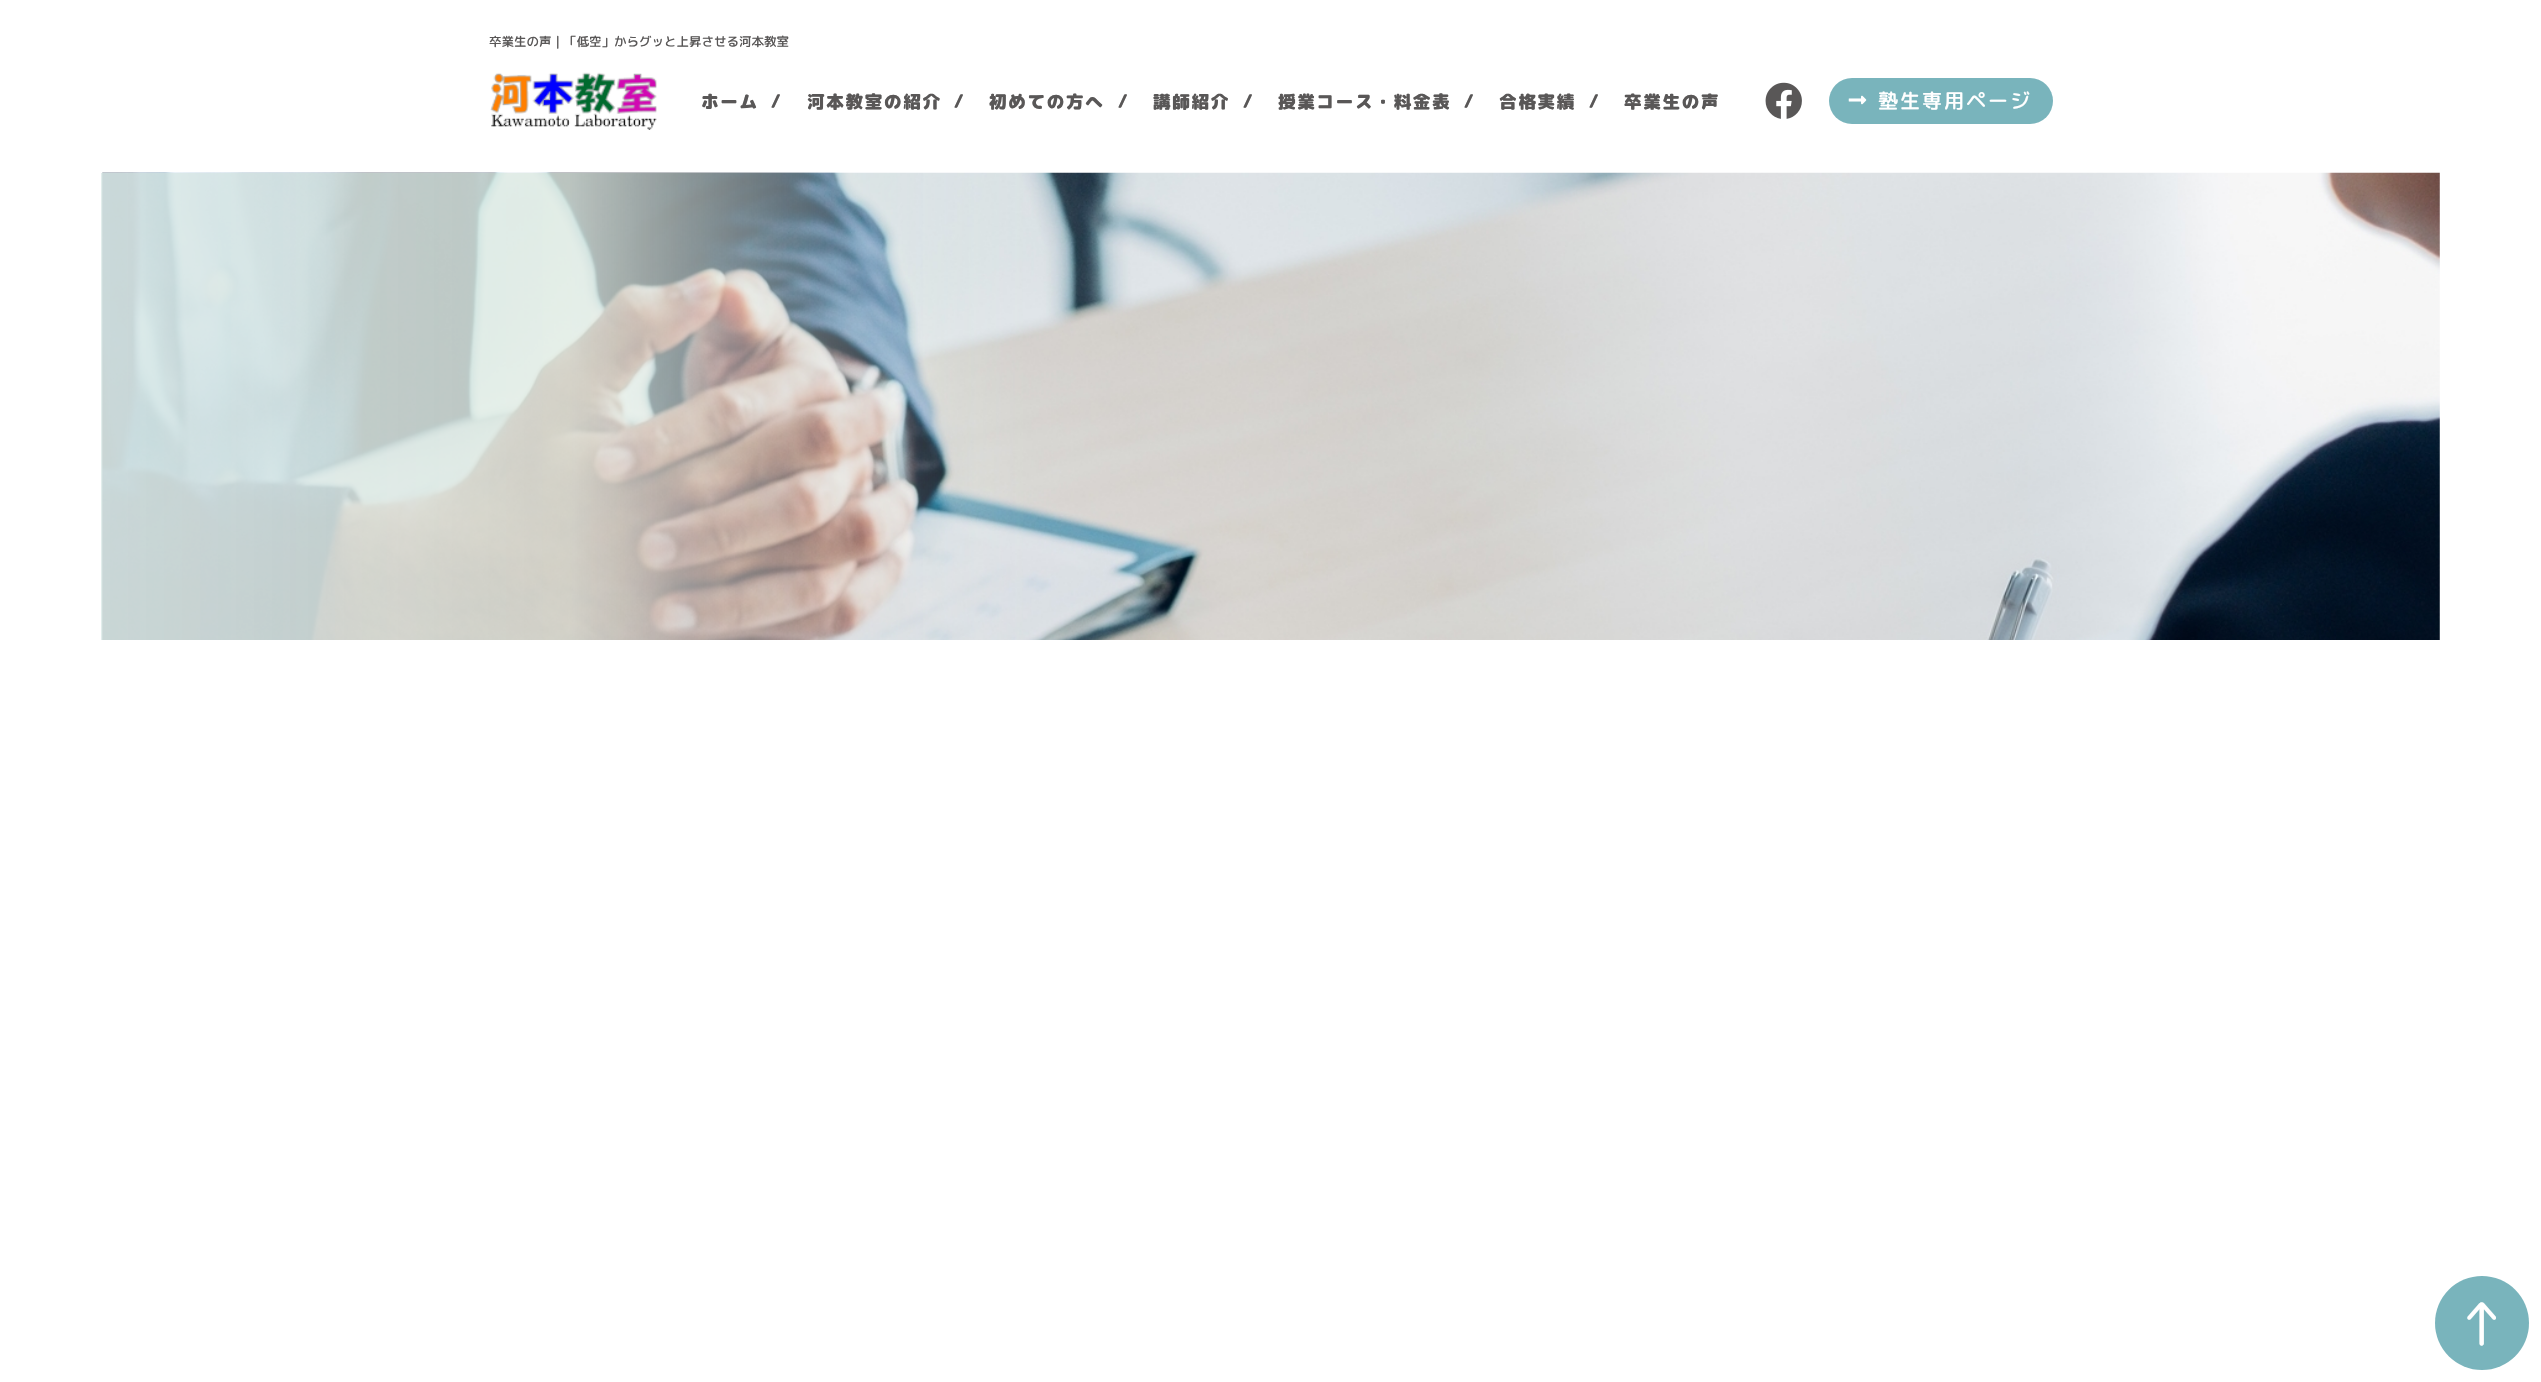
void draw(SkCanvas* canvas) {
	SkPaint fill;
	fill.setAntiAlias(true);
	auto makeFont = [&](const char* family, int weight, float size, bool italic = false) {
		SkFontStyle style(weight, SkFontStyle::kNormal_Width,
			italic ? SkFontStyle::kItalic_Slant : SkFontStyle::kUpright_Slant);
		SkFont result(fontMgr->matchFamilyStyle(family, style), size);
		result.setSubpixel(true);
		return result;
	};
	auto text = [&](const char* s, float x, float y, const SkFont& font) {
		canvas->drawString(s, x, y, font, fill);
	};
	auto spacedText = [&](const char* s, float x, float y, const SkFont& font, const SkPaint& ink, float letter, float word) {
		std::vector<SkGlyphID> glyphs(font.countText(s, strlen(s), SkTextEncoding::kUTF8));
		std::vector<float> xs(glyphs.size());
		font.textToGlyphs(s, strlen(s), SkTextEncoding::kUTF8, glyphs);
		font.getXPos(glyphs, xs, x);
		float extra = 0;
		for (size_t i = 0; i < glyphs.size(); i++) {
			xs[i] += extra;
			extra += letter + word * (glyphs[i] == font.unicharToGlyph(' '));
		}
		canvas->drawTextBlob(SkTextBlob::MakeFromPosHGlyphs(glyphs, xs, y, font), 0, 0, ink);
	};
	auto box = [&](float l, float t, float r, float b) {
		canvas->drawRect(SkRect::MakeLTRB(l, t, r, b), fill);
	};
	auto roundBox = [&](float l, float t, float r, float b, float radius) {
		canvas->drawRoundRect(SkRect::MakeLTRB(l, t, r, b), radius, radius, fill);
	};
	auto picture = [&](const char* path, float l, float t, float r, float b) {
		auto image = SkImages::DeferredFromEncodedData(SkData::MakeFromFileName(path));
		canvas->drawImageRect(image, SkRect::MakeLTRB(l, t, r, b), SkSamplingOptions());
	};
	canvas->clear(0xFFFFFFFF);
	picture("image0.png", 490, 72, 657, 130);
	picture("image1.png", 1765, 82, 1802, 119);
	fill.setColor(0xFF79B4BC);
	roundBox(1829, 78, 2053, 124, 23);
	picture("image2.png", 1848, 95, 1867, 105);
	picture("image3.png", 102, 172, 2440, 640);
	{
		const SkColor colors[] = {0xE6DFECEA, 0xCCE8F2E9, 0x00E8F2E9, 0x00FFFFFF};
		const float stops[] = {0, 0.2f, 0.4f, 1};
		const SkPoint ends[] = {{101, 406}, {2440, 406}};
		fill.setShader(SkGradientShader::MakeLinear(ends, colors, stops, 4, SkTileMode::kClamp));
		fill.setAlpha(255);
	}
	box(101, 173, 1023, 640);
	fill.setShader(nullptr);
	fill.setColor(0xFF79B4BC);
	canvas->drawCircle(2482, 1323, 47, fill);
	auto font1 = makeFont("Rounded Mplus 1c", 500, 12.5f);
	fill.setColor(0xFF595757);
	text("卒業生の声｜「低空」からグッと上昇させる河本教室", 489, 46, font1);
	auto font2 = makeFont("Rounded Mplus 1c", 900, 17.5f);
	spacedText("ホーム", 701, 108, font2, fill, 1.75f, 0);
	spacedText("/", 771, 107, font2, fill, 1.75f, 0);
	spacedText("河本教室の紹介", 807, 108, font2, fill, 1.75f, 0);
	spacedText("/", 954, 107, font2, fill, 1.75f, 0);
	spacedText("初めての方へ", 989, 108, font2, fill, 1.75f, 0);
	spacedText("/", 1118, 107, font2, fill, 1.75f, 0);
	spacedText("講師紹介", 1153, 108, font2, fill, 1.75f, 0);
	spacedText("/", 1243, 107, font2, fill, 1.75f, 0);
	spacedText("授業コース・料金表", 1278, 108, font2, fill, 1.75f, 0);
	spacedText("/", 1464, 107, font2, fill, 1.75f, 0);
	spacedText("合格実績", 1499, 108, font2, fill, 1.75f, 0);
	spacedText("/", 1589, 107, font2, fill, 1.75f, 0);
	spacedText("卒業生の声", 1624, 108, font2, fill, 1.75f, 0);
	auto font3 = makeFont("Rounded Mplus 1c", 500, 20);
	fill.setColor(0xFFFFFFFF);
	spacedText("塾生専用ページ", 1878, 108, font3, fill, 2, 0);
	auto font4 = makeFont("Rounded Mplus 1c", 400, 62);
	text("↑", 2459, 1347, font4);
}
